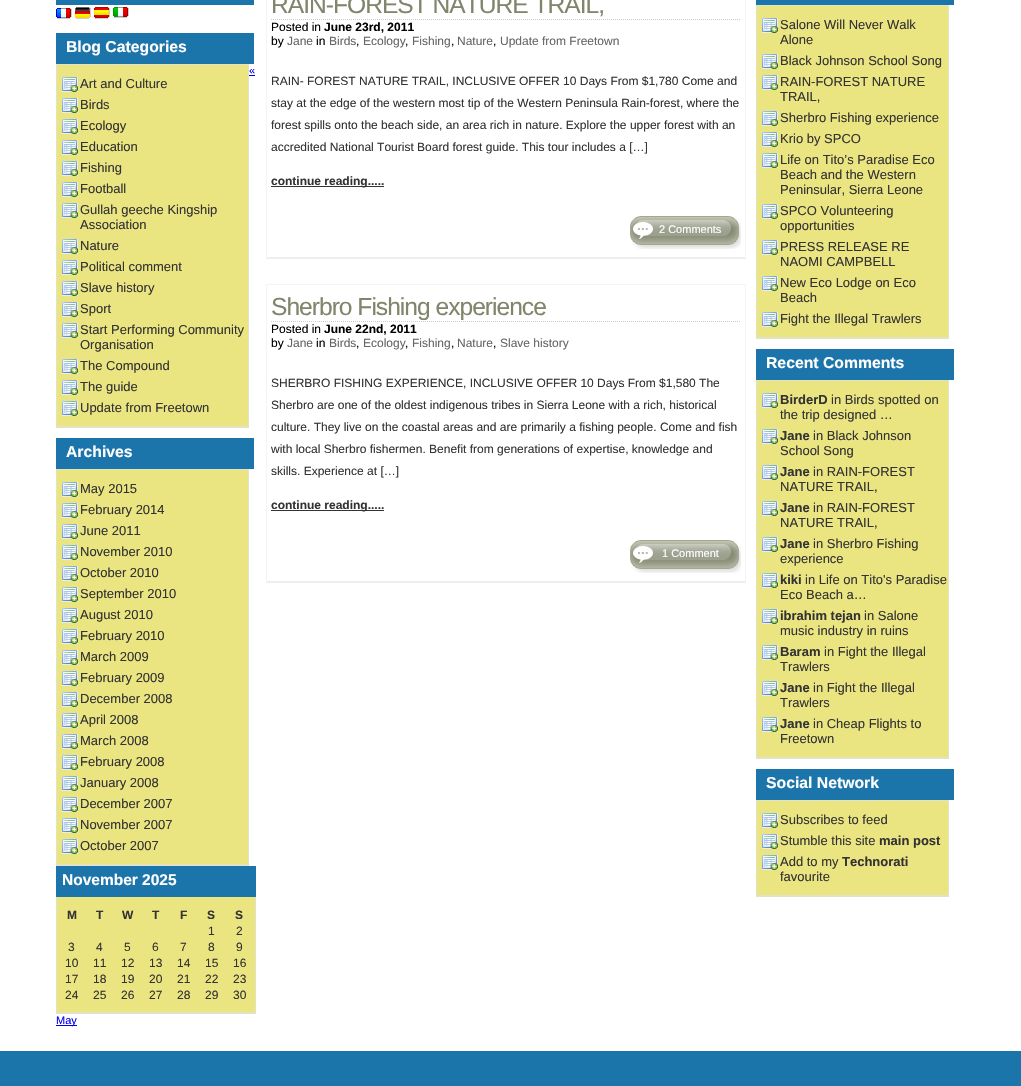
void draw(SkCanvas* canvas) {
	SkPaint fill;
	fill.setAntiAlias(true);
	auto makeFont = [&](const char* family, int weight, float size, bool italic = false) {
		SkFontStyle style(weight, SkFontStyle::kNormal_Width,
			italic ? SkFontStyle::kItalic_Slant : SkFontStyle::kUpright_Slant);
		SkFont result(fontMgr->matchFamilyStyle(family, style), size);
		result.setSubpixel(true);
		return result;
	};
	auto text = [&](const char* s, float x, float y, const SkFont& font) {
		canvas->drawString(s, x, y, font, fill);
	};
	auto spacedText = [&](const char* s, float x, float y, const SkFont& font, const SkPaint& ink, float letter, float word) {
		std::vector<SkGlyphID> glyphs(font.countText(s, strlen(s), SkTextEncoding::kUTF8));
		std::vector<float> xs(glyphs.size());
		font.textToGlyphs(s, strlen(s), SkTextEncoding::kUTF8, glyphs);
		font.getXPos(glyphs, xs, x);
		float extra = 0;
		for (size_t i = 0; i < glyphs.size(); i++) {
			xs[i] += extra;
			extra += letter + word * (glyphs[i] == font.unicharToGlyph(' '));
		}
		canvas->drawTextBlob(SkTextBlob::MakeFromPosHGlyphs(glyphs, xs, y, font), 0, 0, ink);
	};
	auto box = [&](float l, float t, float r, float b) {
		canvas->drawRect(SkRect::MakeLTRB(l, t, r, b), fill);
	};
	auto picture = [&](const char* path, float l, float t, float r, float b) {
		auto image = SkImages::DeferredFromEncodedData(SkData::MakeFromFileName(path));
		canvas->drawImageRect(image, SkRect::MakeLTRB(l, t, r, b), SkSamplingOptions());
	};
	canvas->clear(0xFFFFFFFF);
	fill.setColor(0xFF1B74AA);
	box(56, 0, 254, 5);
	picture("image0.png", 56, 8, 72, 19);
	picture("image1.png", 75, 7, 91, 19);
	picture("image2.png", 94, 7, 110, 19);
	picture("image3.png", 113, 7, 129, 18);
	box(56, 33, 254, 64);
	fill.setColor(0xFF0000EE);
	box(249, 75, 255, 76);
	box(56, 1025, 77, 1026);
	fill.setColor(0xFFEAE481);
	box(57, 65, 248, 426);
	fill.setColor(0xFFE2E2C5);
	box(56, 64, 249, 65);
	box(248, 64, 249, 428);
	box(56, 426, 249, 428);
	box(56, 64, 57, 428);
	picture("image4.png", 62, 77, 78, 92);
	picture("image4.png", 62, 98, 78, 113);
	picture("image4.png", 62, 119, 78, 134);
	picture("image4.png", 62, 140, 78, 155);
	picture("image4.png", 62, 161, 78, 176);
	picture("image4.png", 62, 182, 78, 197);
	picture("image4.png", 62, 203, 78, 218);
	picture("image4.png", 62, 239, 78, 254);
	picture("image4.png", 62, 260, 78, 275);
	picture("image4.png", 62, 281, 78, 296);
	picture("image4.png", 62, 302, 78, 317);
	picture("image4.png", 62, 323, 78, 338);
	picture("image4.png", 62, 359, 78, 374);
	picture("image4.png", 62, 380, 78, 395);
	picture("image4.png", 62, 401, 78, 416);
	fill.setColor(0xFF1B74AA);
	box(56, 438, 254, 469);
	fill.setColor(0xFFEAE481);
	box(57, 470, 248, 864);
	fill.setColor(0xFFE2E2C5);
	box(56, 469, 249, 470);
	box(248, 469, 249, 866);
	box(56, 864, 249, 866);
	box(56, 469, 57, 866);
	picture("image4.png", 62, 482, 78, 497);
	picture("image4.png", 62, 503, 78, 518);
	picture("image4.png", 62, 524, 78, 539);
	picture("image4.png", 62, 545, 78, 560);
	picture("image4.png", 62, 566, 78, 581);
	picture("image4.png", 62, 587, 78, 602);
	picture("image4.png", 62, 608, 78, 623);
	picture("image4.png", 62, 629, 78, 644);
	picture("image4.png", 62, 650, 78, 665);
	picture("image4.png", 62, 671, 78, 686);
	picture("image4.png", 62, 692, 78, 707);
	picture("image4.png", 62, 713, 78, 728);
	picture("image4.png", 62, 734, 78, 749);
	picture("image4.png", 62, 755, 78, 770);
	picture("image4.png", 62, 776, 78, 791);
	picture("image4.png", 62, 797, 78, 812);
	picture("image4.png", 62, 818, 78, 833);
	picture("image4.png", 62, 839, 78, 854);
	fill.setColor(0xFFEAE481);
	box(57, 897, 255, 1012);
	fill.setColor(0xFFE2E2C5);
	box(255, 897, 256, 1014);
	box(56, 1012, 256, 1014);
	box(56, 897, 57, 1014);
	fill.setColor(0xFF1B74AA);
	box(56, 866, 256, 897);
	fill.setColor(0xFFF4F4F4);
	canvas->drawPath(SkPathBuilder().moveTo(746, -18).lineTo(746, 259).lineTo(745, 257).lineTo(745, -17).close().detach(), fill);
	fill.setColor(0xFFEEEEEE);
	canvas->drawPath(SkPathBuilder().moveTo(746, 259).lineTo(266, 259).lineTo(267, 257).lineTo(745, 257).close().detach(), fill);
	fill.setColor(0xFFF4F4F4);
	canvas->drawPath(SkPathBuilder().moveTo(266, 259).lineTo(266, -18).lineTo(267, -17).lineTo(267, 257).close().detach(), fill);
	fill.setStyle(SkPaint::kStroke_Style);
	fill.setStrokeWidth(1);
	fill.setColor(0xFFCCCCCC);
	fill.setPathEffect(SkDashPathEffect::Make({{1, 1}}, 0));
	canvas->drawPath(SkPathBuilder().moveTo(271, 19.5f).lineTo(741, 19.5f).detach(), fill);
	fill.setPathEffect(nullptr);
	fill.setStyle(SkPaint::kFill_Style);
	fill.setColor(0xFF333333);
	box(271, 186, 384, 187);
	picture("image5.png", 630, 216, 741, 249);
	fill.setColor(0xFFF4F4F4);
	box(266, 284, 746, 285);
	canvas->drawPath(SkPathBuilder().moveTo(746, 284).lineTo(746, 583).lineTo(745, 581).lineTo(745, 285).close().detach(), fill);
	fill.setColor(0xFFEEEEEE);
	canvas->drawPath(SkPathBuilder().moveTo(746, 583).lineTo(266, 583).lineTo(267, 581).lineTo(745, 581).close().detach(), fill);
	fill.setColor(0xFFF4F4F4);
	canvas->drawPath(SkPathBuilder().moveTo(266, 583).lineTo(266, 284).lineTo(267, 285).lineTo(267, 581).close().detach(), fill);
	fill.setStyle(SkPaint::kStroke_Style);
	fill.setColor(0xFFCCCCCC);
	fill.setPathEffect(SkDashPathEffect::Make({{1, 1}}, 0));
	canvas->drawPath(SkPathBuilder().moveTo(271, 321.5f).lineTo(741, 321.5f).detach(), fill);
	fill.setPathEffect(nullptr);
	fill.setStyle(SkPaint::kFill_Style);
	fill.setColor(0xFF333333);
	box(271, 510, 384, 511);
	picture("image5.png", 630, 540, 741, 573);
	fill.setColor(0xFF1B74AA);
	box(756, 0, 954, 5);
	fill.setColor(0xFFEAE481);
	box(757, 6, 948, 337);
	fill.setColor(0xFFE2E2C5);
	box(756, 5, 949, 6);
	box(948, 5, 949, 339);
	box(756, 337, 949, 339);
	box(756, 5, 757, 339);
	picture("image4.png", 762, 18, 778, 33);
	picture("image4.png", 762, 54, 778, 69);
	picture("image4.png", 762, 75, 778, 90);
	picture("image4.png", 762, 111, 778, 126);
	picture("image4.png", 762, 132, 778, 147);
	picture("image4.png", 762, 153, 778, 168);
	picture("image4.png", 762, 204, 778, 219);
	picture("image4.png", 762, 240, 778, 255);
	picture("image4.png", 762, 276, 778, 291);
	picture("image4.png", 762, 312, 778, 327);
	fill.setColor(0xFF1B74AA);
	box(756, 349, 954, 380);
	fill.setColor(0xFFEAE481);
	box(757, 381, 948, 757);
	fill.setColor(0xFFE2E2C5);
	box(756, 380, 949, 381);
	box(948, 380, 949, 759);
	box(756, 757, 949, 759);
	box(756, 380, 757, 759);
	picture("image4.png", 762, 393, 778, 408);
	picture("image4.png", 762, 429, 778, 444);
	picture("image4.png", 762, 465, 778, 480);
	picture("image4.png", 762, 501, 778, 516);
	picture("image4.png", 762, 537, 778, 552);
	picture("image4.png", 762, 573, 778, 588);
	picture("image4.png", 762, 609, 778, 624);
	picture("image4.png", 762, 645, 778, 660);
	picture("image4.png", 762, 681, 778, 696);
	picture("image4.png", 762, 717, 778, 732);
	fill.setColor(0xFF1B74AA);
	box(756, 769, 954, 800);
	fill.setColor(0xFFEAE481);
	box(757, 801, 948, 895);
	fill.setColor(0xFFE2E2C5);
	box(756, 800, 949, 801);
	box(948, 800, 949, 897);
	box(756, 895, 949, 897);
	box(756, 800, 757, 897);
	picture("image4.png", 762, 813, 778, 828);
	picture("image4.png", 762, 834, 778, 849);
	picture("image4.png", 762, 855, 778, 870);
	fill.setColor(0xFF1B74AA);
	box(0, 1051, 1021, 1086);
	auto font1 = makeFont("Liberation Sans", 700, 15.75f);
	fill.setColor(0xFFFFFFFF);
	text("Blog Categories", 66, 52, font1);
	auto font2 = makeFont("Liberation Sans", 400, 11);
	fill.setColor(0xFF0000EE);
	text("«", 249, 74, font2);
	text("May", 56, 1024, font2);
	auto font3 = makeFont("Liberation Sans", 400, 13);
	fill.setColor(0xFF333333);
	text("Art and Culture", 80, 88, font3);
	text("Birds", 80, 109, font3);
	text("Ecology", 80, 130, font3);
	text("Education", 80, 151, font3);
	text("Fishing", 80, 172, font3);
	text("Football", 80, 193, font3);
	text("Gullah geeche Kingship", 80, 214, font3);
	text("Association", 80, 229, font3);
	text("Nature", 80, 250, font3);
	text("Political comment", 80, 271, font3);
	text("Slave history", 80, 292, font3);
	text("Sport", 80, 313, font3);
	text("Start Performing Community", 80, 334, font3);
	text("Organisation", 80, 349, font3);
	text("The Compound", 80, 370, font3);
	text("The guide", 80, 391, font3);
	text("Update from Freetown", 80, 412, font3);
	fill.setColor(0xFFFFFFFF);
	text("Archives", 66, 457, font1);
	fill.setColor(0xFF333333);
	text("May 2015", 80, 493, font3);
	text("February 2014", 80, 514, font3);
	text("June 2011", 80, 535, font3);
	text("November 2010", 80, 556, font3);
	text("October 2010", 80, 577, font3);
	text("September 2010", 80, 598, font3);
	text("August 2010", 80, 619, font3);
	text("February 2010", 80, 640, font3);
	text("March 2009", 80, 661, font3);
	text("February 2009", 80, 682, font3);
	text("December 2008", 80, 703, font3);
	text("April 2008", 80, 724, font3);
	text("March 2008", 80, 745, font3);
	text("February 2008", 80, 766, font3);
	text("January 2008", 80, 787, font3);
	text("December 2007", 80, 808, font3);
	text("November 2007", 80, 829, font3);
	text("October 2007", 80, 850, font3);
	auto font4 = makeFont("Liberation Sans", 700, 15.5f);
	fill.setColor(0xFFFFFFFF);
	text("November 2025", 62, 885, font4);
	auto font5 = makeFont("Liberation Sans", 700, 12);
	fill.setColor(0xFF333333);
	text("M", 67, 919, font5);
	text("T", 96, 919, font5);
	text("W", 122, 919, font5);
	text("T", 152, 919, font5);
	text("F", 180, 919, font5);
	text("S", 207, 919, font5);
	text("S", 235, 919, font5);
	auto font6 = makeFont("Liberation Sans", 400, 12);
	text("1", 208, 935, font6);
	text("2", 236, 935, font6);
	text("3", 68, 951, font6);
	text("4", 96, 951, font6);
	text("5", 124, 951, font6);
	text("6", 152, 951, font6);
	text("7", 180, 951, font6);
	text("8", 208, 951, font6);
	text("9", 236, 951, font6);
	text("10", 65, 967, font6);
	text("11", 93, 967, font6);
	text("12", 121, 967, font6);
	text("13", 149, 967, font6);
	text("14", 177, 967, font6);
	text("15", 205, 967, font6);
	text("16", 233, 967, font6);
	text("17", 65, 983, font6);
	text("18", 93, 983, font6);
	text("19", 121, 983, font6);
	text("20", 149, 983, font6);
	text("21", 177, 983, font6);
	text("22", 205, 983, font6);
	text("23", 233, 983, font6);
	text("24", 65, 999, font6);
	text("25", 93, 999, font6);
	text("26", 121, 999, font6);
	text("27", 149, 999, font6);
	text("28", 177, 999, font6);
	text("29", 205, 999, font6);
	text("30", 233, 999, font6);
	auto font7 = makeFont("Liberation Sans", 400, 24.6f);
	fill.setColor(0xFF80856B);
	spacedText("RAIN-FOREST NATURE TRAIL,", 271, 13, font7, fill, -1, 0);
	fill.setColor(0xFF000000);
	text("Posted in", 271, 31, font6);
	text("June 23rd, 2011", 324, 31, font5);
	text("by", 271, 45, font6);
	fill.setColor(0xFF666666);
	text("Jane", 287, 45, font6);
	fill.setColor(0xFF000000);
	text("in", 316, 45, font6);
	fill.setColor(0xFF666666);
	text("Birds", 329, 45, font6);
	fill.setColor(0xFF000000);
	text(",", 356, 45, font6);
	fill.setColor(0xFF666666);
	text("Ecology", 363, 45, font6);
	fill.setColor(0xFF000000);
	text(",", 405, 45, font6);
	fill.setColor(0xFF666666);
	text("Fishing", 412, 45, font6);
	fill.setColor(0xFF000000);
	text(",", 451, 45, font6);
	fill.setColor(0xFF666666);
	text("Nature", 457, 45, font6);
	fill.setColor(0xFF000000);
	text(",", 493, 45, font6);
	fill.setColor(0xFF666666);
	text("Update from Freetown", 500, 45, font6);
	fill.setColor(0xFF333333);
	text("RAIN- FOREST NATURE TRAIL, INCLUSIVE OFFER 10 Days From $1,780 Come and", 271, 85, font6);
	text("stay at the edge of the western most tip of the Western Peninsula Rain-forest, where the", 271, 107, font6);
	text("forest spills onto the beach side, an area rich in nature. Explore the upper forest with an", 271, 129, font6);
	text("accredited National Tourist Board forest guide. This tour includes a […]", 271, 151, font6);
	text("continue reading.....", 271, 185, font5);
	fill.setColor(0xFFFFFFFF);
	text("2 Comments", 659, 233, font2);
	fill.setColor(0xFF80856B);
	spacedText("Sherbro Fishing experience", 271, 315, font7, fill, -1, 0);
	fill.setColor(0xFF000000);
	text("Posted in", 271, 333, font6);
	text("June 22nd, 2011", 324, 333, font5);
	text("by", 271, 347, font6);
	fill.setColor(0xFF666666);
	text("Jane", 287, 347, font6);
	fill.setColor(0xFF000000);
	text("in", 316, 347, font6);
	fill.setColor(0xFF666666);
	text("Birds", 329, 347, font6);
	fill.setColor(0xFF000000);
	text(",", 356, 347, font6);
	fill.setColor(0xFF666666);
	text("Ecology", 363, 347, font6);
	fill.setColor(0xFF000000);
	text(",", 405, 347, font6);
	fill.setColor(0xFF666666);
	text("Fishing", 412, 347, font6);
	fill.setColor(0xFF000000);
	text(",", 451, 347, font6);
	fill.setColor(0xFF666666);
	text("Nature", 457, 347, font6);
	fill.setColor(0xFF000000);
	text(",", 493, 347, font6);
	fill.setColor(0xFF666666);
	text("Slave history", 500, 347, font6);
	fill.setColor(0xFF333333);
	text("SHERBRO FISHING EXPERIENCE, INCLUSIVE OFFER 10 Days From $1,580 The", 271, 387, font6);
	text("Sherbro are one of the oldest indigenous tribes in Sierra Leone with a rich, historical", 271, 409, font6);
	text("culture. They live on the coastal areas and are primarily a fishing people. Come and fish", 271, 431, font6);
	text("with local Sherbro fishermen. Benefit from generations of expertise, knowledge and", 271, 453, font6);
	text("skills. Experience at […]", 271, 475, font6);
	text("continue reading.....", 271, 509, font5);
	fill.setColor(0xFFFFFFFF);
	text("1 Comment", 662, 557, font2);
	fill.setColor(0xFF333333);
	text("Salone Will Never Walk", 780, 29, font3);
	text("Alone", 780, 44, font3);
	text("Black Johnson School Song", 780, 65, font3);
	text("RAIN-FOREST NATURE", 780, 86, font3);
	text("TRAIL,", 780, 101, font3);
	text("Sherbro Fishing experience", 780, 122, font3);
	text("Krio by SPCO", 780, 143, font3);
	text("Life on Tito’s Paradise Eco", 780, 164, font3);
	text("Beach and the Western", 780, 179, font3);
	text("Peninsular, Sierra Leone", 780, 194, font3);
	text("SPCO Volunteering", 780, 215, font3);
	text("opportunities", 780, 230, font3);
	text("PRESS RELEASE RE", 780, 251, font3);
	text("NAOMI CAMPBELL", 780, 266, font3);
	text("New Eco Lodge on Eco", 780, 287, font3);
	text("Beach", 780, 302, font3);
	text("Fight the Illegal Trawlers", 780, 323, font3);
	fill.setColor(0xFFFFFFFF);
	text("Recent Comments", 766, 368, font1);
	auto font8 = makeFont("Liberation Sans", 700, 13);
	fill.setColor(0xFF333333);
	text("BirderD", 780, 404, font8);
	text("in Birds spotted on", 831, 404, font3);
	text("the trip designed …", 780, 419, font3);
	text("Jane", 780, 440, font8);
	text("in Black Johnson", 813, 440, font3);
	text("School Song", 780, 455, font3);
	text("Jane", 780, 476, font8);
	text("in RAIN-FOREST", 813, 476, font3);
	text("NATURE TRAIL,", 780, 491, font3);
	text("Jane", 780, 512, font8);
	text("in RAIN-FOREST", 813, 512, font3);
	text("NATURE TRAIL,", 780, 527, font3);
	text("Jane", 780, 548, font8);
	text("in Sherbro Fishing", 813, 548, font3);
	text("experience", 780, 563, font3);
	text("kiki", 780, 584, font8);
	text("in Life on Tito's Paradise", 805, 584, font3);
	text("Eco Beach a…", 780, 599, font3);
	text("ibrahim tejan", 780, 620, font8);
	text("in Salone", 864, 620, font3);
	text("music industry in ruins", 780, 635, font3);
	text("Baram", 780, 656, font8);
	text("in Fight the Illegal", 824, 656, font3);
	text("Trawlers", 780, 671, font3);
	text("Jane", 780, 692, font8);
	text("in Fight the Illegal", 813, 692, font3);
	text("Trawlers", 780, 707, font3);
	text("Jane", 780, 728, font8);
	text("in Cheap Flights to", 813, 728, font3);
	text("Freetown", 780, 743, font3);
	fill.setColor(0xFFFFFFFF);
	text("Social Network", 766, 788, font1);
	fill.setColor(0xFF333333);
	text("Subscribes to feed", 780, 824, font3);
	text("Stumble this site", 780, 845, font3);
	text("main post", 879, 845, font8);
	text("Add to my", 780, 866, font3);
	text("Technorati", 842, 866, font8);
	text("favourite", 780, 881, font3);
}
